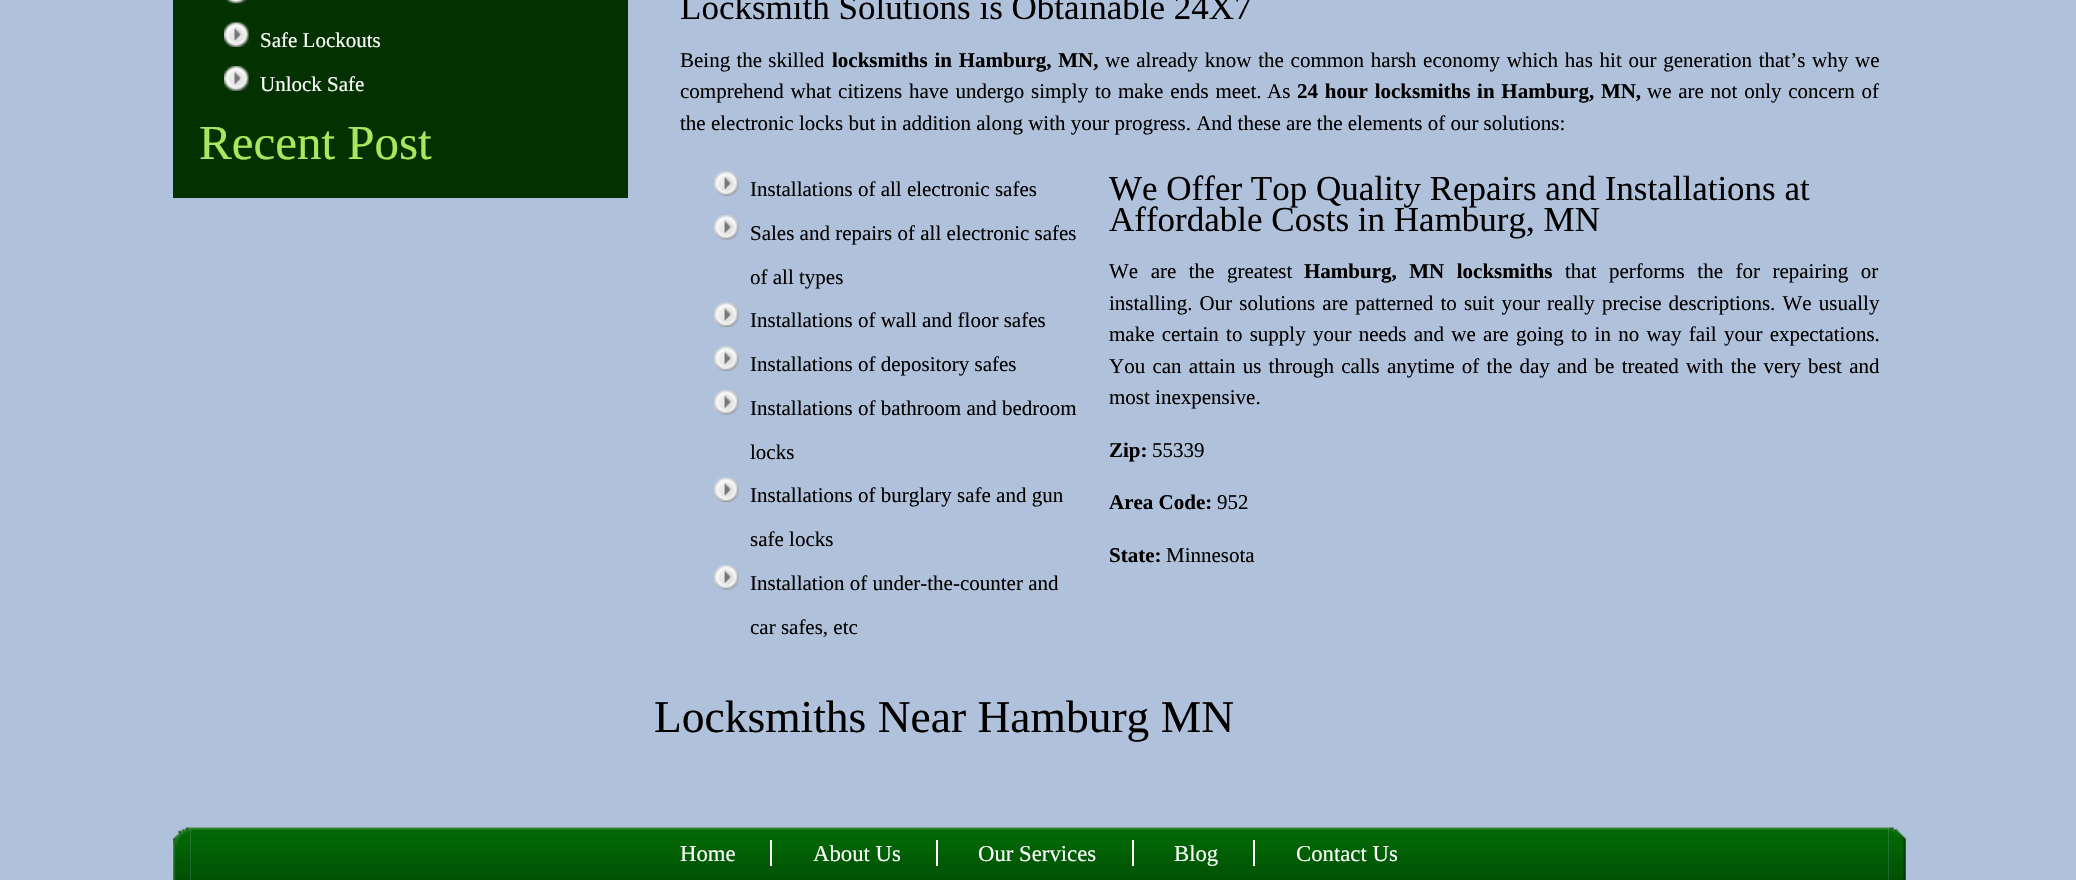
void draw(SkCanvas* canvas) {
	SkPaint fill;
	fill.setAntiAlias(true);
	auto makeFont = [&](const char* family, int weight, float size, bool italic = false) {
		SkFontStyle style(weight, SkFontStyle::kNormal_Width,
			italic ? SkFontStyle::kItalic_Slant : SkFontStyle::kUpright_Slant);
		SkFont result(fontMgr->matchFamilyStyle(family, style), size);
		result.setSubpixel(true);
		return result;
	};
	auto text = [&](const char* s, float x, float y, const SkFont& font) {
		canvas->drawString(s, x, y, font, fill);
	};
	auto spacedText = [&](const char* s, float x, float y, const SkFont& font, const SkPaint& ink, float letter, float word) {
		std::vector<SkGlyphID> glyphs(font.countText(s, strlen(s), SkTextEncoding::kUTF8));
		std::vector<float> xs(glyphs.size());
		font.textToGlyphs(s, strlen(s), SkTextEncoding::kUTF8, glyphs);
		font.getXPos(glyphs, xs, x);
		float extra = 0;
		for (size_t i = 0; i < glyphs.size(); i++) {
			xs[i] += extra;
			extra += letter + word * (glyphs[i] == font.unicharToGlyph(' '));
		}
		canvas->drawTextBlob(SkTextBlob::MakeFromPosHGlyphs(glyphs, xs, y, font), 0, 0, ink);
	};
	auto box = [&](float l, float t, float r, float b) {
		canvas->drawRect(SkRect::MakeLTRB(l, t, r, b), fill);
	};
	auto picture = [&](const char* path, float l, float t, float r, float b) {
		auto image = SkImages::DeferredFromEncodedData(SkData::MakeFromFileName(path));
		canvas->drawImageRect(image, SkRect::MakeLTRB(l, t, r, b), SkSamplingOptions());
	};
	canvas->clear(0xFFB0C2DB);
	fill.setColor(0xFF033200);
	box(173, 0, 628, 198);
	picture("image0.png", 226, 0, 247, 4);
	picture("image1.png", 224, 22, 249, 47);
	picture("image2.png", 224, 66, 249, 91);
	picture("image3.png", 714, 171, 739, 196);
	picture("image4.png", 714, 215, 739, 240);
	picture("image5.png", 714, 302, 739, 327);
	picture("image3.png", 714, 346, 739, 371);
	picture("image4.png", 714, 390, 739, 415);
	picture("image5.png", 714, 477, 739, 502);
	picture("image4.png", 714, 565, 739, 590);
	picture("image6.png", 173, 827, 191, 880);
	picture("image7.png", 190, 827, 1889, 880);
	fill.setColor(0xFFFFFFFF);
	box(770, 840, 772, 866);
	box(936, 840, 938, 866);
	box(1132, 840, 1134, 866);
	box(1253, 840, 1255, 866);
	picture("image8.png", 1888, 827, 1906, 880);
	auto font1 = makeFont("Liberation Serif", 400, 21);
	text("Safe Lockouts", 260, 47, font1);
	text("Unlock Safe", 260, 91, font1);
	auto font2 = makeFont("Liberation Serif", 400, 49);
	fill.setColor(0xFFA9E85D);
	text("Recent Post", 199, 159, font2);
	auto font3 = makeFont("Liberation Serif", 400, 35);
	fill.setColor(0xFF030000);
	text("Locksmith Solutions is Obtainable 24X7", 680, 19, font3);
	spacedText("Being the skilled", 680, 67, font1, fill, 0, 1);
	auto font4 = makeFont("Liberation Serif", 700, 21);
	spacedText("locksmiths in Hamburg, MN,", 832, 67, font4, fill, 0, 1.5f);
	spacedText("we already know the common harsh economy which has hit our generation that’s why we", 1105, 67, font1, fill, 0, 1.5f);
	spacedText("comprehend what citizens have undergo simply to make ends meet.", 680, 98, font1, fill, 0, 1.5f);
	text("As", 1267, 98, font1);
	spacedText("24 hour locksmiths in Hamburg, MN,", 1297, 98, font4, fill, 0, 1.5f);
	spacedText("we are not only concern of", 1647, 98, font1, fill, 0, 1.5f);
	text("the electronic locks but in addition along with your progress. And these are the elements of our solutions:", 680, 130, font1);
	text("Installations of all electronic safes", 750, 196, font1);
	text("Sales and repairs of all electronic safes", 750, 240, font1);
	text("of all types", 750, 284, font1);
	text("Installations of wall and floor safes", 750, 327, font1);
	text("Installations of depository safes", 750, 371, font1);
	text("Installations of bathroom and bedroom", 750, 415, font1);
	text("locks", 750, 459, font1);
	text("Installations of burglary safe and gun", 750, 502, font1);
	text("safe locks", 750, 546, font1);
	text("Installation of under-the-counter and", 750, 590, font1);
	text("car safes, etc", 750, 634, font1);
	text("We Offer Top Quality Repairs and Installations at", 1109, 200, font3);
	text("Affordable Costs in Hamburg, MN", 1109, 231, font3);
	spacedText("We are the greatest", 1109, 278, font1, fill, 0, 7.25f);
	spacedText("Hamburg, MN locksmiths", 1304, 278, font4, fill, 0, 7.25f);
	spacedText("that performs the for repairing or", 1565, 278, font1, fill, 0, 7.25f);
	spacedText("installing. Our solutions are patterned to suit your really precise descriptions. We usually", 1109, 310, font1, fill, 0, 1.9f);
	spacedText("make certain to supply your needs and we are going to in no way fail your expectations.", 1109, 341, font1, fill, 0, 2);
	spacedText("You can attain us through calls anytime of the day and be treated with the very best and", 1109, 373, font1, fill, 0, 2);
	text("most inexpensive.", 1109, 404, font1);
	text("Zip:", 1109, 457, font4);
	text("55339", 1152, 457, font1);
	text("Area Code:", 1109, 509, font4);
	text("952", 1217, 509, font1);
	text("State:", 1109, 562, font4);
	text("Minnesota", 1166, 562, font1);
	auto font5 = makeFont("Liberation Serif", 400, 45.5f);
	text("Locksmiths Near Hamburg MN", 654, 732, font5);
	auto font6 = makeFont("Liberation Serif", 400, 22.75f);
	fill.setColor(0xFFFFFFFF);
	text("Home", 680, 861, font6);
	text("About Us", 813, 861, font6);
	text("Our Services", 978, 861, font6);
	text("Blog", 1174, 861, font6);
	text("Contact Us", 1296, 861, font6);
}
